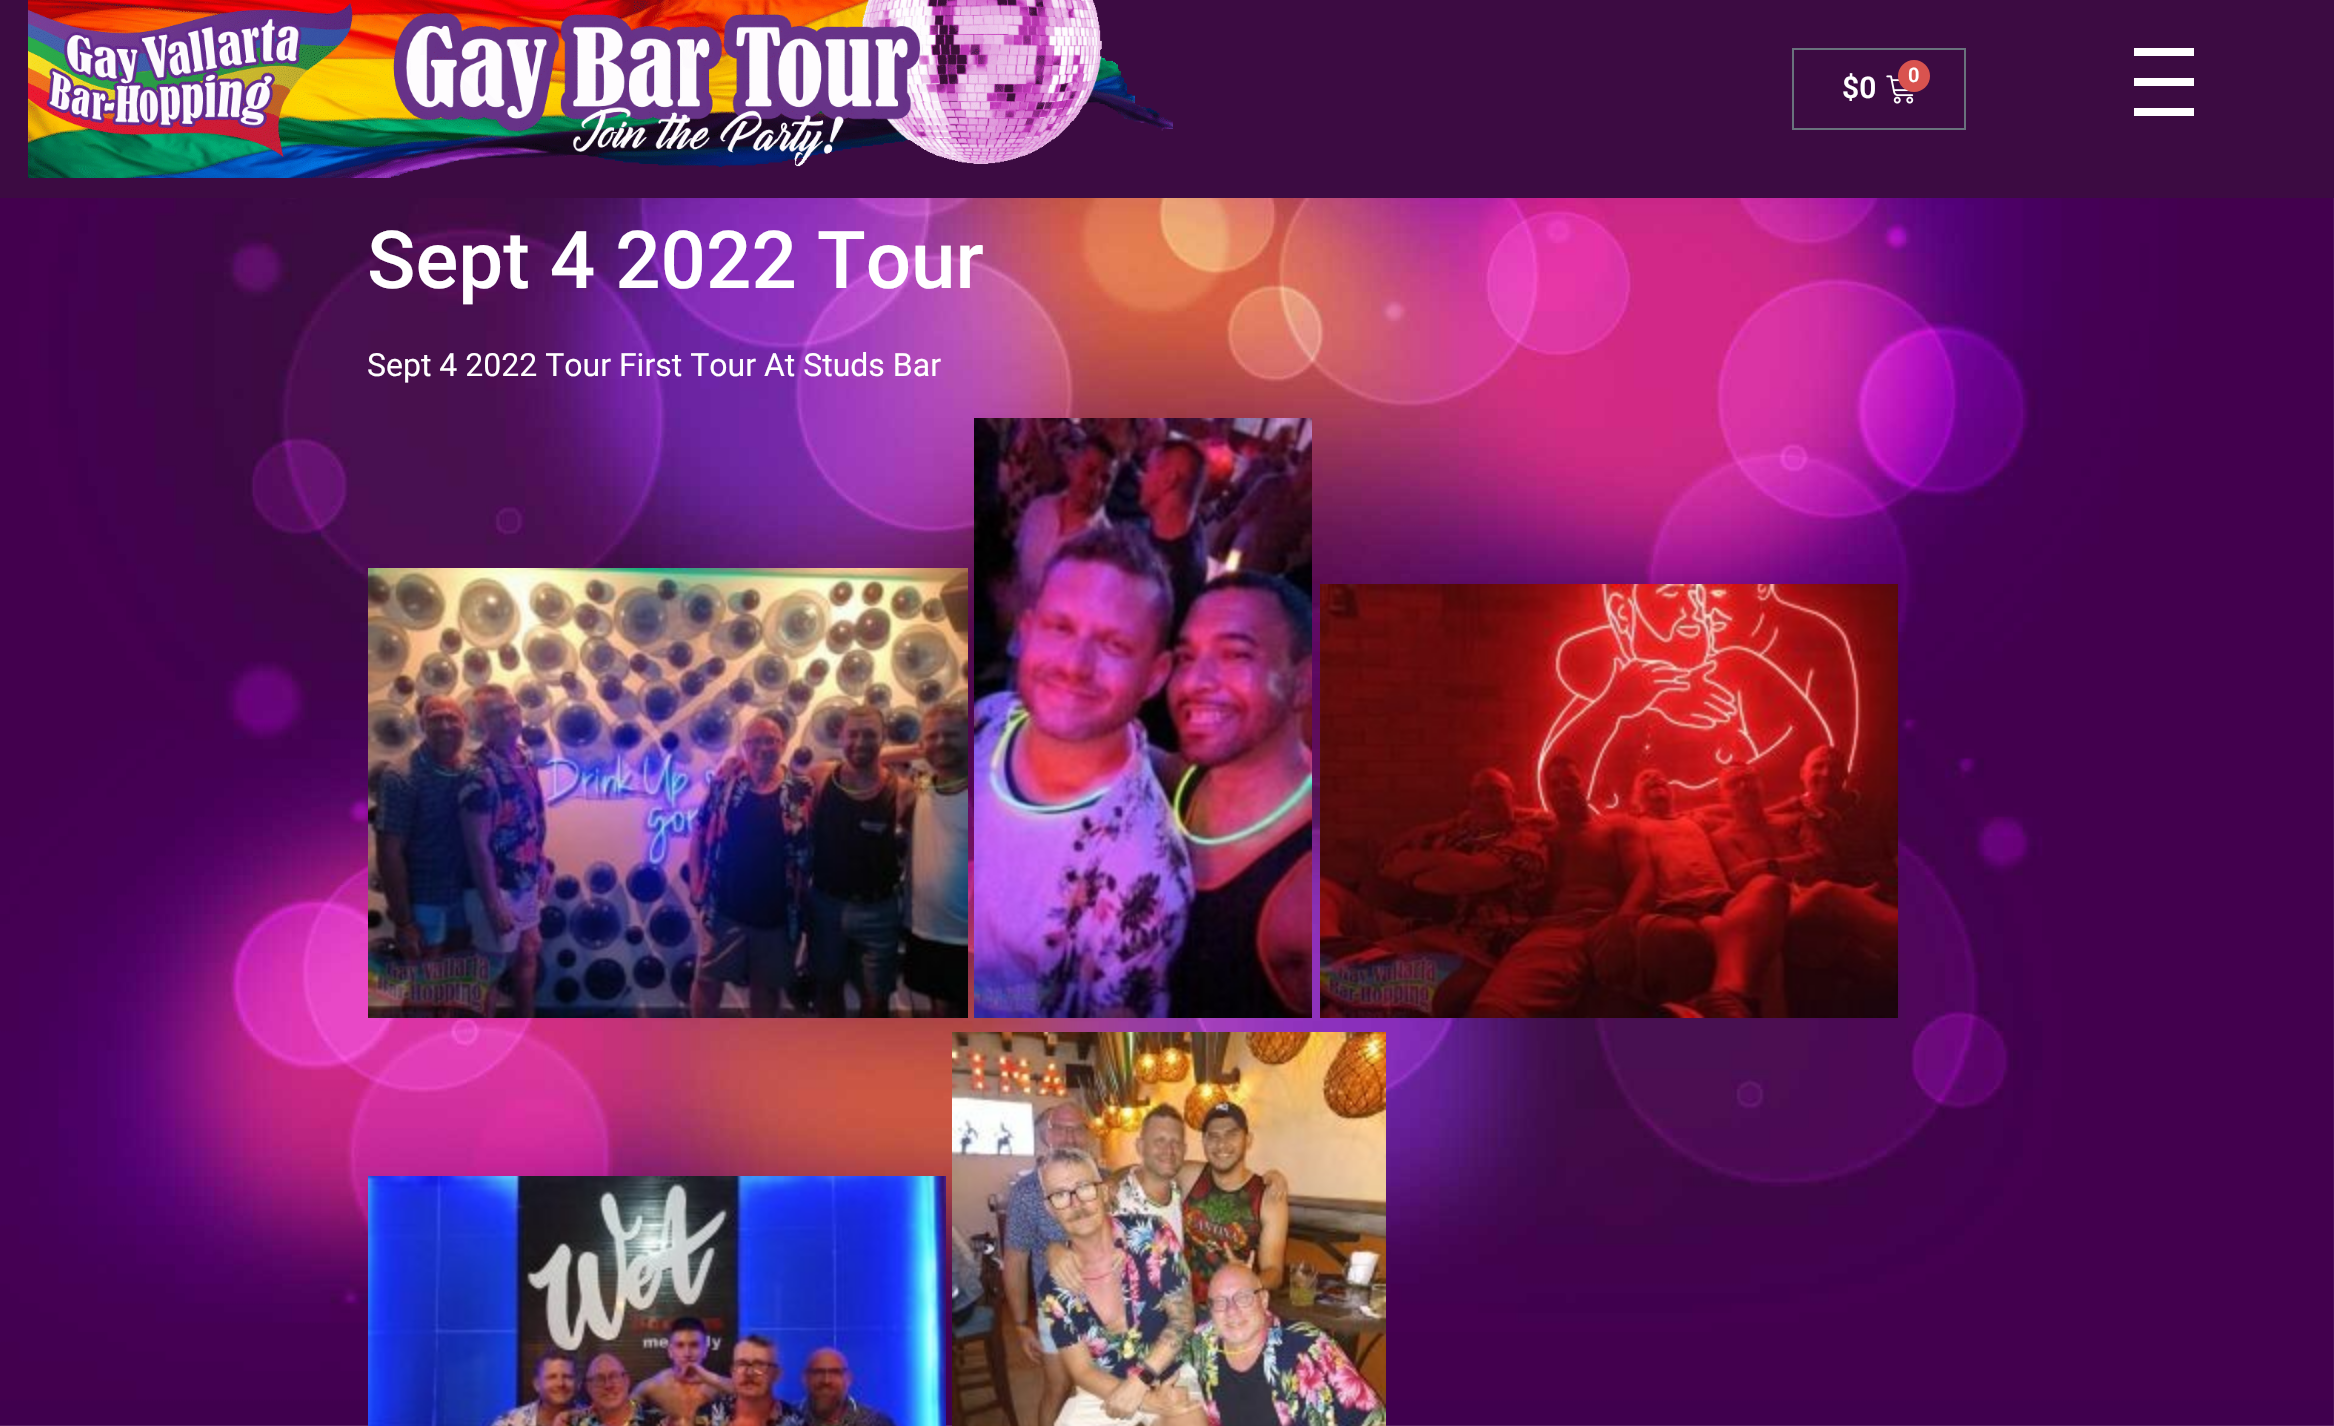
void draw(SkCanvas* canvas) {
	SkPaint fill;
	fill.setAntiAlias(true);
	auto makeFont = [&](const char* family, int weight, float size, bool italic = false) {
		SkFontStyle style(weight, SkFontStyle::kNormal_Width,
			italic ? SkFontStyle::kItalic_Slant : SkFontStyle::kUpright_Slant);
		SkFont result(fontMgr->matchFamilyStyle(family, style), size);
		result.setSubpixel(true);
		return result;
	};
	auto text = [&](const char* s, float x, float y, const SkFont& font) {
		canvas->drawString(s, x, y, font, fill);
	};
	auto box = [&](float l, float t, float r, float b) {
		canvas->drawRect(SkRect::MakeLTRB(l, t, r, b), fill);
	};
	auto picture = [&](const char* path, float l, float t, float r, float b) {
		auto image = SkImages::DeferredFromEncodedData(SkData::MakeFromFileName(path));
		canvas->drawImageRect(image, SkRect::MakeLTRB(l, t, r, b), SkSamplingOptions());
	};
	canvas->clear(0xFFFFFFFF);
	picture("image0.png", 0, 198, 2334, 1426);
	fill.setColor(0xFF3C0B42);
	box(0, 0, 2334, 198);
	picture("image1.png", 28, 0, 1173, 178);
	fill.setStyle(SkPaint::kStroke_Style);
	fill.setStrokeWidth(2);
	fill.setColor(0xFF69727D);
	canvas->drawRect(SkRect::MakeLTRB(1793, 49, 1965, 129), fill);
	picture("image2.png", 1886, 75, 1914, 104);
	fill.setStyle(SkPaint::kFill_Style);
	fill.setColor(0xFFD9534F);
	canvas->drawCircle(1914, 76, 16, fill);
	fill.setColor(0xFFFFFFFF);
	box(2134, 48, 2194, 56);
	box(2134, 78, 2194, 86);
	box(2134, 108, 2194, 116);
	picture("image3.png", 368, 568, 968, 1018);
	picture("image4.png", 974, 418, 1312, 1018);
	picture("image5.png", 1320, 584, 1898, 1018);
	picture("image6.png", 368, 1176, 946, 1426);
	picture("image7.png", 952, 1032, 1386, 1426);
	auto font1 = makeFont("Roboto", 600, 30);
	text("$0", 1842, 98, font1);
	auto font2 = makeFont("Roboto", 600, 20);
	text("0", 1908, 82, font2);
	auto font3 = makeFont("Roboto", 500, 80);
	text("Sept 4 2022 Tour", 367, 288, font3);
	auto font4 = makeFont("Roboto", 400, 32);
	text("Sept 4 2022 Tour First Tour At Studs Bar", 367, 376, font4);
}
